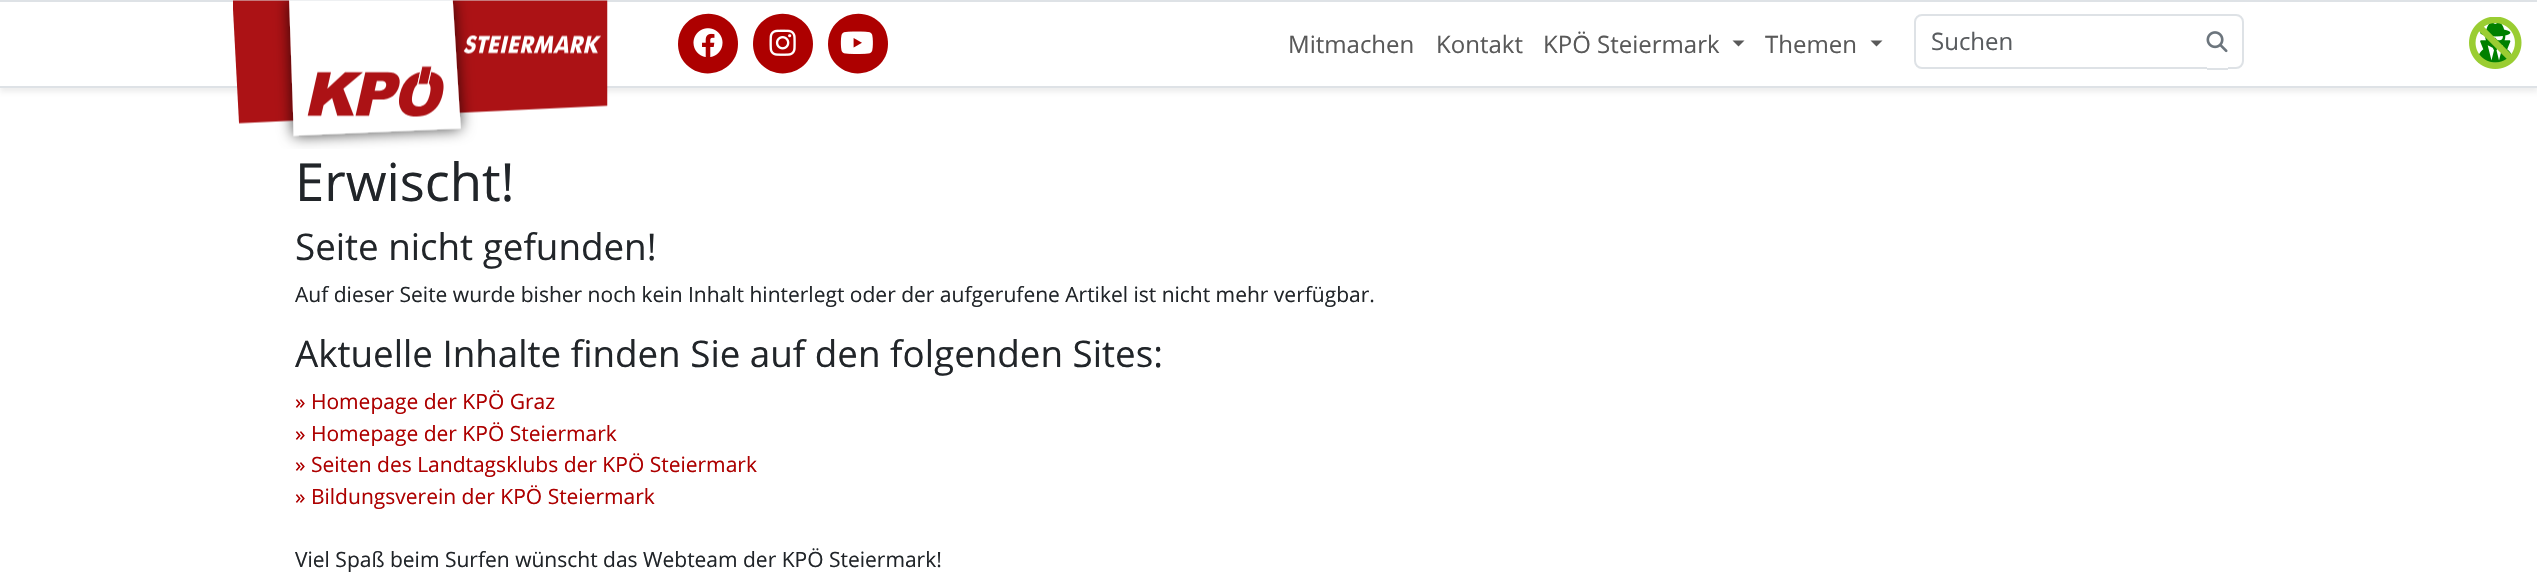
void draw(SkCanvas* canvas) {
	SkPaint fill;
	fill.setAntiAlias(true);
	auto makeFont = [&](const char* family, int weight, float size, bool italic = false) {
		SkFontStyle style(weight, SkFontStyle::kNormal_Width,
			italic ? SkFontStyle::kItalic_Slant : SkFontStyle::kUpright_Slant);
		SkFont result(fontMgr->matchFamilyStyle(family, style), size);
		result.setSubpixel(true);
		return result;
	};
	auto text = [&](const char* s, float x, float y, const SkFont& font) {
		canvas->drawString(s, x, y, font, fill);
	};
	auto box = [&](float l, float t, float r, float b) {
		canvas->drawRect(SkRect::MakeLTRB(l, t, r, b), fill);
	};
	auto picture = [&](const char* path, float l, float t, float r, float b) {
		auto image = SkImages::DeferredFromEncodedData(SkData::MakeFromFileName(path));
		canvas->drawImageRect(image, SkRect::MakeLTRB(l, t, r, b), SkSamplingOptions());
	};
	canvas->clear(0xFFFFFFFF);
	canvas->save();
	canvas->clipRect(SkRect::MakeLTRB(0, 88, 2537, 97));
	fill.setColor(0xFFEEEEEE);
	fill.setMaskFilter(SkMaskFilter::MakeBlur(kNormal_SkBlurStyle, 2.5f));
	canvas->drawRect(SkRect::MakeLTRB(0, 5, 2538, 92), fill);
	fill.setMaskFilter(nullptr);
	canvas->restore();
	fill.setColor(0xFFDEE2E6);
	box(0, 0, 2537, 2);
	box(0, 86, 2537, 88);
	picture("image0.png", 233, 0, 608, 149);
	fill.setColor(0xFFAD0000);
	canvas->drawPath(SkPathBuilder().moveTo(678, 44).cubicTo(678, 50, 680, 57, 684, 62).cubicTo(702, 84, 738, 72, 738, 44).cubicTo(738, 37, 736, 30, 732, 25).cubicTo(714, 3, 678, 15, 678, 44).close().detach(), fill);
	picture("image1.png", 693, 28, 723, 57);
	canvas->drawPath(SkPathBuilder().moveTo(753, 44).cubicTo(753, 50, 755, 57, 759, 62).cubicTo(777, 84, 813, 72, 813, 44).cubicTo(813, 15, 777, 3, 759, 25).cubicTo(755, 30, 753, 37, 753, 44).close().detach(), fill);
	picture("image2.png", 769, 29, 796, 56);
	canvas->drawPath(SkPathBuilder().moveTo(828, 44).cubicTo(828, 50, 830, 57, 834, 62).cubicTo(852, 84, 888, 72, 888, 44).cubicTo(888, 37, 886, 30, 882, 25).cubicTo(864, 3, 828, 15, 828, 44).close().detach(), fill);
	picture("image3.png", 840, 31, 873, 54);
	fill.setColor(0xFF595959);
	canvas->drawPath(SkPathBuilder().moveTo(1732.5f, 40.5f).lineTo(1744.5f, 40.5f).lineTo(1738.5f, 46.5f).close().detach(), fill);
	canvas->drawPath(SkPathBuilder().moveTo(1870.5f, 40.5f).lineTo(1882.5f, 40.5f).lineTo(1876.5f, 46.5f).close().detach(), fill);
	fill.setStyle(SkPaint::kStroke_Style);
	fill.setStrokeWidth(2);
	fill.setColor(0xFFDEE2E6);
	canvas->drawRoundRect(SkRect::MakeLTRB(1915, 15, 2243, 68), 7, 7, fill);
	fill.setStyle(SkPaint::kFill_Style);
	fill.setColor(0xFFFFFFFF);
	box(2207, 67, 2228, 68);
	fill.setColor(0xFFDEE2E6);
	box(2207, 69, 2228, 70);
	picture("image4.png", 2206, 31, 2228, 53);
	picture("image5.png", 2469, 17, 2522, 69);
	auto font1 = makeFont("Open Sans", 400, 24);
	fill.setColor(0xFF595959);
	text("Mitmachen", 1288, 53, font1);
	text("Kontakt", 1436, 53, font1);
	text("KPÖ Steiermark", 1543, 53, font1);
	text("Themen", 1765, 53, font1);
	fill.setColor(0xFF595C5F);
	text("Suchen", 1931, 50, font1);
	auto font2 = makeFont("Open Sans", 400, 52.5f);
	fill.setColor(0xFF212529);
	text("Erwischt!", 295, 201, font2);
	auto font3 = makeFont("Open Sans", 400, 36.75f);
	text("Seite nicht gefunden!", 295, 260, font3);
	auto font4 = makeFont("Open Sans", 400, 21);
	text("Auf dieser Seite wurde bisher noch kein Inhalt hinterlegt oder der aufgerufene Artikel ist nicht mehr verfügbar.", 295, 302, font4);
	text("Aktuelle Inhalte finden Sie auf den folgenden Sites:", 295, 367, font3);
	fill.setColor(0xFFAD0000);
	text("» Homepage der KPÖ Graz", 295, 409, font4);
	text("» Homepage der KPÖ Steiermark", 295, 441, font4);
	text("» Seiten des Landtagsklubs der KPÖ Steiermark", 295, 472, font4);
	text("» Bildungsverein der KPÖ Steiermark", 295, 504, font4);
	fill.setColor(0xFF212529);
	text("Viel Spaß beim Surfen wünscht das Webteam der KPÖ Steiermark!", 295, 567, font4);
}
